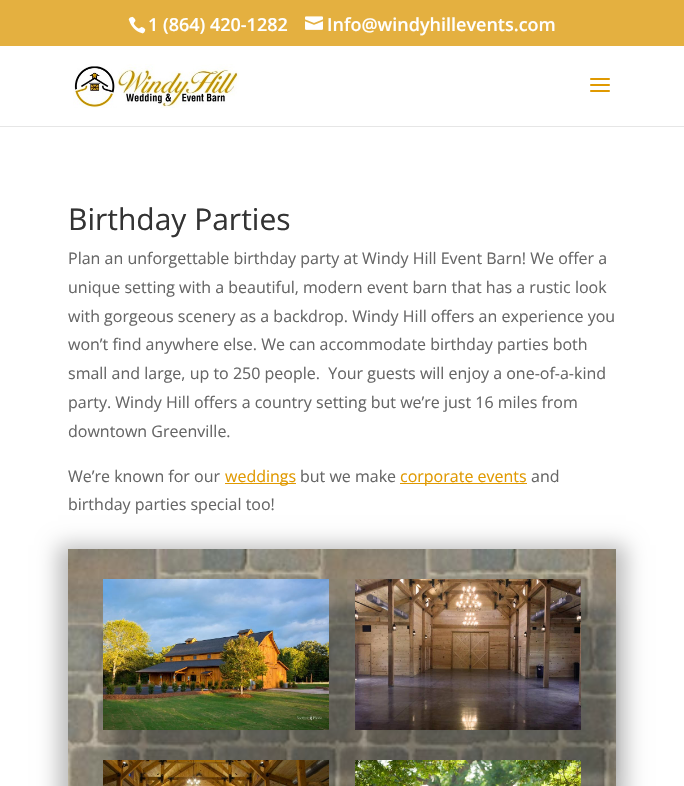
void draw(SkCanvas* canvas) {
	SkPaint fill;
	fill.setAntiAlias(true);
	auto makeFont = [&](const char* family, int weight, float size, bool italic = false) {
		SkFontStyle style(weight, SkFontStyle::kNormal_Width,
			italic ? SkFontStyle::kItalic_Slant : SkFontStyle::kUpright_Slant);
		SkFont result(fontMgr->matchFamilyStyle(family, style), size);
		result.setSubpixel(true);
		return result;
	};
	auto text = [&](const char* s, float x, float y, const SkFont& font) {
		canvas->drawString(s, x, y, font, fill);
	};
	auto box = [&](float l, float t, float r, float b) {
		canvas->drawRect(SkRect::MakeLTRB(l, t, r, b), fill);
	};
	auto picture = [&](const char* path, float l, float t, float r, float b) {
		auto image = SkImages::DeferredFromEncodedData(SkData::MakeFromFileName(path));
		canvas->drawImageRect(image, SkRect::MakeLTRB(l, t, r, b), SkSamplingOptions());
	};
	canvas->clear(0xFFFFFFFF);
	fill.setColor(0xFFE4B040);
	box(0, 0, 684, 46);
	picture("image0.png", 128, 16, 146, 34);
	picture("image1.png", 305, 16, 323, 30);
	fill.setColor(0xFFE6E6E6);
	box(0, 126, 684, 127);
	picture("image2.png", 73, 64, 239, 108);
	picture("image3.png", 590, 78, 610, 92);
	fill.setColor(0xFFE09900);
	box(225, 483, 296, 484);
	box(400, 483, 527, 484);
	fill.setColor(0x42000000);
	fill.setMaskFilter(SkMaskFilter::MakeBlur(kNormal_SkBlurStyle, 10));
	canvas->drawRect(SkRect::MakeLTRB(58, 545, 626, 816), fill);
	fill.setMaskFilter(nullptr);
	picture("image4.png", 68, 549, 616, 786);
	fill.setColor(0x4D000000);
	fill.setMaskFilter(SkMaskFilter::MakeBlur(kNormal_SkBlurStyle, 5));
	canvas->drawRect(SkRect::MakeLTRB(115, 605, 361, 776), fill);
	fill.setMaskFilter(nullptr);
	picture("image5.png", 103, 579, 329, 730);
	fill.setMaskFilter(SkMaskFilter::MakeBlur(kNormal_SkBlurStyle, 5));
	canvas->drawRect(SkRect::MakeLTRB(367, 605, 613, 776), fill);
	fill.setMaskFilter(nullptr);
	picture("image6.png", 355, 579, 581, 730);
	fill.setMaskFilter(SkMaskFilter::MakeBlur(kNormal_SkBlurStyle, 5));
	canvas->drawRect(SkRect::MakeLTRB(115, 786, 361, 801), fill);
	fill.setMaskFilter(nullptr);
	picture("image7.png", 103, 760, 329, 786);
	fill.setMaskFilter(SkMaskFilter::MakeBlur(kNormal_SkBlurStyle, 5));
	canvas->drawRect(SkRect::MakeLTRB(367, 786, 613, 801), fill);
	fill.setMaskFilter(nullptr);
	picture("image8.png", 355, 760, 581, 786);
	auto font1 = makeFont("Open Sans", 600, 18);
	fill.setColor(0xFFFFFFFF);
	text("1 (864) 420-1282", 148, 31, font1);
	text("Info@windyhillevents.com", 327, 31, font1);
	auto font2 = makeFont("Open Sans", 400, 30);
	fill.setColor(0xFF333333);
	text("Birthday Parties", 68, 230, font2);
	auto font3 = makeFont("Open Sans", 400, 16);
	fill.setColor(0xFF666666);
	text("Plan an unforgettable birthday party at Windy Hill Event Barn! We offer a", 68, 264, font3);
	text("unique setting with a beautiful, modern event barn that has a rustic look", 68, 293, font3);
	text("with gorgeous scenery as a backdrop. Windy Hill offers an experience you", 68, 322, font3);
	text("won’t find anywhere else. We can accommodate birthday parties both", 68, 350, font3);
	text("small and large, up to 250 people.  Your guests will enjoy a one-of-a-kind", 68, 379, font3);
	text("party. Windy Hill offers a country setting but we’re just 16 miles from", 68, 408, font3);
	text("downtown Greenville.", 68, 437, font3);
	text("We’re known for our", 68, 482, font3);
	fill.setColor(0xFFE09900);
	text("weddings", 225, 482, font3);
	fill.setColor(0xFF666666);
	text("but we make", 300, 482, font3);
	fill.setColor(0xFFE09900);
	text("corporate events", 400, 482, font3);
	fill.setColor(0xFF666666);
	text("and", 531, 482, font3);
	text("birthday parties special too!", 68, 510, font3);
}
